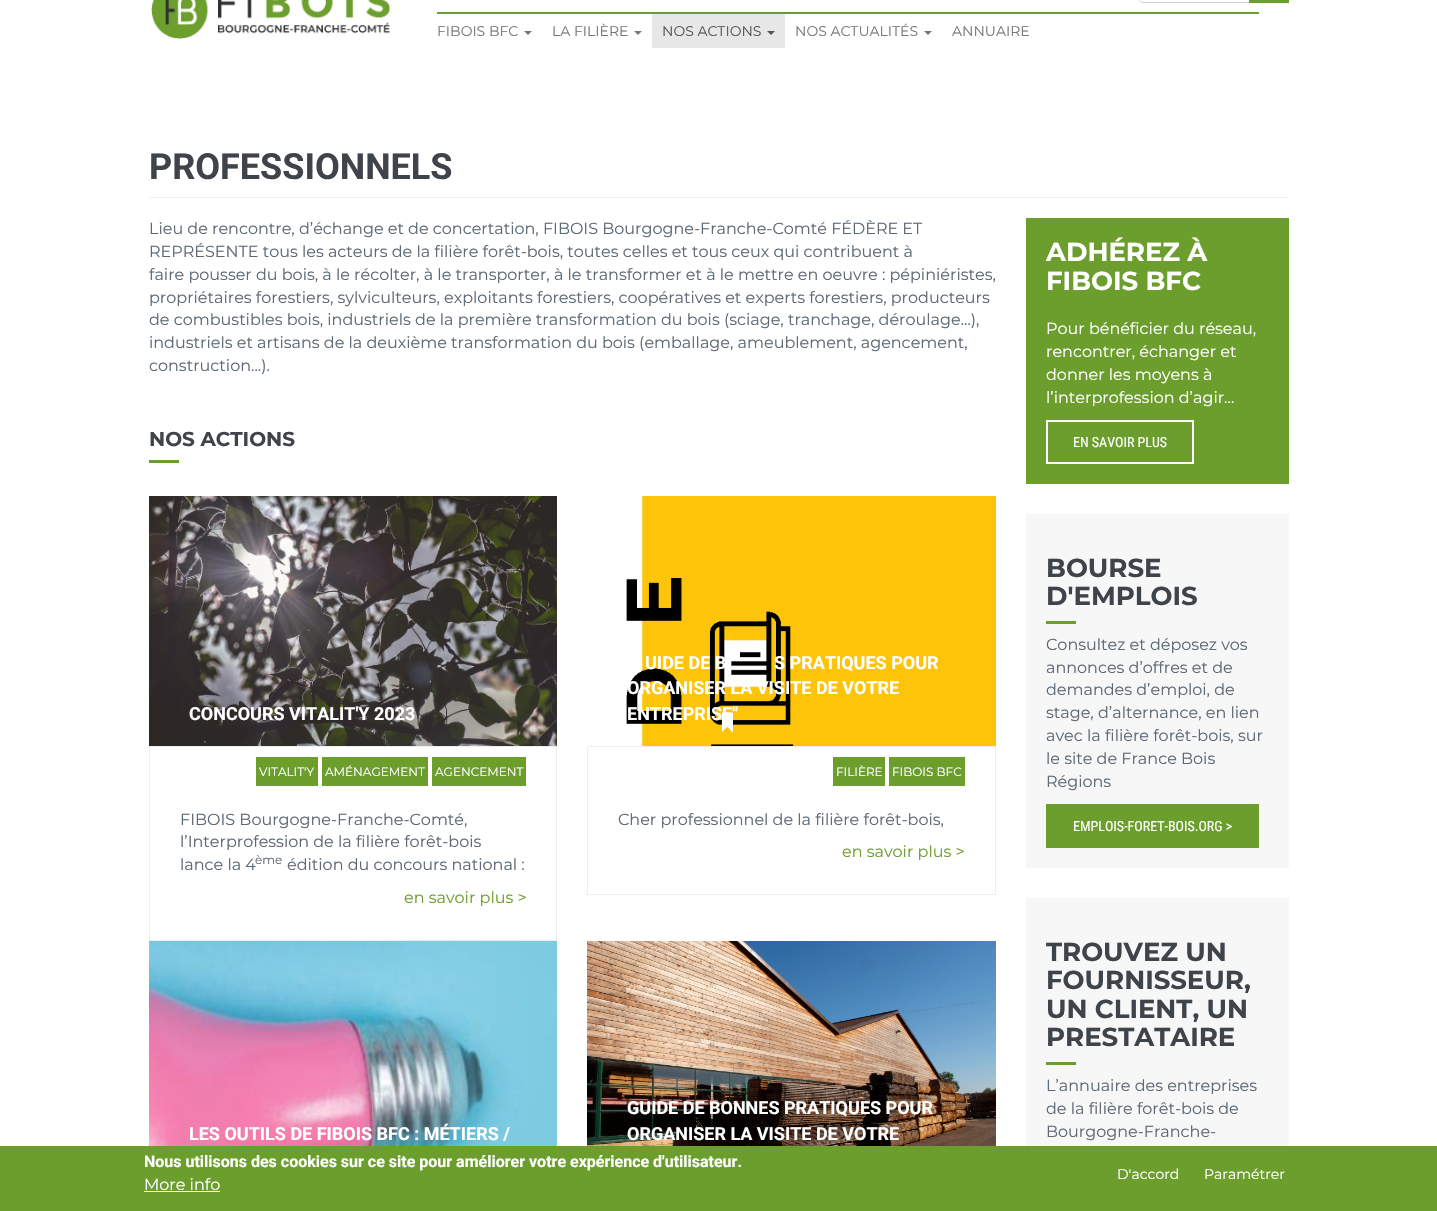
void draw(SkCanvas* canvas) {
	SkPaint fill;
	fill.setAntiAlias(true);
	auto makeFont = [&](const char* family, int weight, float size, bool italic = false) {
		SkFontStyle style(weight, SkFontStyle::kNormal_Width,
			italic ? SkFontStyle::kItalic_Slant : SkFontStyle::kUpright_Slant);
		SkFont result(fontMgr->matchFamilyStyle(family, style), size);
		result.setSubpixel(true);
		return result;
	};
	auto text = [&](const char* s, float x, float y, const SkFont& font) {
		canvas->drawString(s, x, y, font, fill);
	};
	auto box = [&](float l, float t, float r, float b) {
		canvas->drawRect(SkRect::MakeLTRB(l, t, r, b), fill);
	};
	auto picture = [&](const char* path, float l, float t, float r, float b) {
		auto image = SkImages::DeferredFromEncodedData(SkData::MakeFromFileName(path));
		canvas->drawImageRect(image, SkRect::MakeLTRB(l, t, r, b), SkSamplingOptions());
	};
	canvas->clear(0xFFFFFFFF);
	picture("image0.png", 151, 0, 391, 39);
	fill.setStyle(SkPaint::kStroke_Style);
	fill.setStrokeWidth(1);
	fill.setColor(0xFFCCCCCC);
	canvas->drawPath(SkPathBuilder().moveTo(1143, -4.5f).lineTo(1249.5f, -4.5f).lineTo(1249.5f, 2.5f).lineTo(1143, 2.5f).cubicTo(1141, 2.5f, 1139.5f, 1, 1139.5f, -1).cubicTo(1139.5f, -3, 1141, -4.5f, 1143, -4.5f).close().detach(), fill);
	fill.setStyle(SkPaint::kFill_Style);
	fill.setColor(0xFF6C9E2E);
	box(1249, 0, 1289, 3);
	box(437, 12, 1259, 14);
	fill.setColor(0xFF777777);
	canvas->drawPath(SkPathBuilder().moveTo(524, 31).lineTo(532, 31).lineTo(528, 35).close().detach(), fill);
	canvas->drawPath(SkPathBuilder().moveTo(634, 31).lineTo(642, 31).lineTo(638, 35).close().detach(), fill);
	fill.setColor(0xFFE7E7E7);
	box(652, 14, 785, 48);
	fill.setColor(0xFF555555);
	canvas->drawPath(SkPathBuilder().moveTo(767, 31).lineTo(775, 31).lineTo(771, 35).close().detach(), fill);
	fill.setColor(0xFF777777);
	canvas->drawPath(SkPathBuilder().moveTo(924, 31).lineTo(932, 31).lineTo(928, 35).close().detach(), fill);
	fill.setColor(0xFFEEEEEE);
	box(149, 197, 1289, 198);
	fill.setColor(0xFF6C9E2E);
	box(149, 460, 179, 463);
	picture("image1.png", 149, 496, 557, 746);
	fill.setStyle(SkPaint::kStroke_Style);
	fill.setColor(0xFFEEEEEE);
	canvas->drawRect(SkRect::MakeLTRB(149.5f, 746.5f, 556.5f, 940.5f), fill);
	fill.setStyle(SkPaint::kFill_Style);
	fill.setColor(0xFF6C9E2E);
	box(256, 757, 318, 786);
	box(322, 757, 428, 786);
	box(432, 757, 526, 786);
	picture("image2.png", 626, 496, 996, 746);
	fill.setStyle(SkPaint::kStroke_Style);
	fill.setColor(0xFFEEEEEE);
	canvas->drawRect(SkRect::MakeLTRB(587.5f, 746.5f, 995.5f, 894.5f), fill);
	fill.setStyle(SkPaint::kFill_Style);
	fill.setColor(0xFF6C9E2E);
	box(833, 757, 885, 786);
	box(889, 757, 965, 786);
	picture("image3.png", 149, 941, 557, 1146);
	picture("image4.png", 587, 941, 996, 1146);
	box(1026, 218, 1289, 484);
	fill.setStyle(SkPaint::kStroke_Style);
	fill.setStrokeWidth(2);
	fill.setColor(0xFFFFFFFF);
	canvas->drawRect(SkRect::MakeLTRB(1047, 421, 1193, 463), fill);
	fill.setStyle(SkPaint::kFill_Style);
	fill.setColor(0xFFF7F7F7);
	box(1026, 514, 1289, 868);
	fill.setColor(0xFF6C9E2E);
	box(1046, 621, 1076, 624);
	box(1046, 804, 1259, 848);
	fill.setColor(0xFFF7F7F7);
	box(1026, 898, 1289, 1146);
	fill.setColor(0xFF6C9E2E);
	box(1046, 1062, 1076, 1065);
	box(0, 1146, 1437, 1211);
	fill.setColor(0xFFFFFFFF);
	box(144, 1191, 220, 1192);
	auto font1 = makeFont("Montserrat", 400, 14);
	fill.setColor(0xFF777777);
	text("FIBOIS BFC", 437, 36, font1);
	text("LA FILIÈRE", 552, 36, font1);
	fill.setColor(0xFF555555);
	text("NOS ACTIONS", 662, 36, font1);
	fill.setColor(0xFF777777);
	text("NOS ACTUALITÉS", 795, 36, font1);
	text("ANNUAIRE", 952, 36, font1);
	auto font2 = makeFont("Roboto", 700, 36);
	fill.setColor(0xFF3F444A);
	text("PROFESSIONNELS", 149, 179, font2);
	auto font3 = makeFont("Montserrat", 400, 16);
	fill.setColor(0xFF5C6873);
	text("Lieu de rencontre, d’échange et de concertation, FIBOIS Bourgogne-Franche-Comté FÉDÈRE ET", 149, 234, font3);
	text("REPRÉSENTE tous les acteurs de la filière forêt-bois, toutes celles et tous ceux qui contribuent à", 149, 257, font3);
	text("faire pousser du bois, à le récolter, à le transporter, à le transformer et à le mettre en oeuvre : pépiniéristes,", 149, 280, font3);
	text("propriétaires forestiers, sylviculteurs, exploitants forestiers, coopératives et experts forestiers, producteurs", 149, 303, font3);
	text("de combustibles bois, industriels de la première transformation du bois (sciage, tranchage, déroulage...),", 149, 325, font3);
	text("industriels et artisans de la deuxième transformation du bois (emballage, ameublement, agencement,", 149, 348, font3);
	text("construction...).", 149, 371, font3);
	auto font4 = makeFont("Montserrat", 700, 20);
	fill.setColor(0xFF3F444A);
	text("NOS ACTIONS", 149, 446, font4);
	auto font5 = makeFont("Roboto", 700, 18);
	fill.setColor(0xFFFFFFFF);
	text("CONCOURS VITALIT'Y 2023", 189, 720, font5);
	auto font6 = makeFont("Montserrat", 400, 12);
	text("VITALIT'Y", 259, 776, font6);
	text("AMÉNAGEMENT", 325, 776, font6);
	text("AGENCEMENT", 435, 776, font6);
	fill.setColor(0xFF5C6873);
	text("FIBOIS Bourgogne-Franche-Comté,", 180, 825, font3);
	text("l’Interprofession de la filière forêt-bois", 180, 847, font3);
	text("lance la 4", 180, 870, font3);
	text("ème", 255, 864, font6);
	text("édition du concours national :", 287, 870, font3);
	fill.setColor(0xFF6C9E2E);
	text("en savoir plus >", 404, 903, font3);
	fill.setColor(0xFFFFFFFF);
	text("UIDE DE B", 645, 669, font5);
	text("S PRATIQUES POUR", 774, 669, font5);
	text("ORGANISER LA VISITE DE VOTRE", 627, 694, font5);
	text("ENTREPRISE\"", 627, 720, font5);
	text("FILIÈRE", 836, 776, font6);
	text("FIBOIS BFC", 892, 776, font6);
	fill.setColor(0xFF5C6873);
	text("Cher professionnel de la filière forêt-bois,", 618, 825, font3);
	fill.setColor(0xFF6C9E2E);
	text("en savoir plus >", 842, 857, font3);
	fill.setColor(0xFFFFFFFF);
	text("LES OUTILS DE FIBOIS BFC : MÉTIERS /", 189, 1140, font5);
	text("GUIDE DE BONNES PRATIQUES POUR", 627, 1114, font5);
	text("ORGANISER LA VISITE DE VOTRE", 627, 1140, font5);
	auto font7 = makeFont("Montserrat", 700, 26);
	text("ADHÉREZ À", 1046, 261, font7);
	text("FIBOIS BFC", 1046, 290, font7);
	text("Pour bénéficier du réseau,", 1046, 334, font3);
	text("rencontrer, échanger et", 1046, 357, font3);
	text("donner les moyens à", 1046, 380, font3);
	text("l’interprofession d’agir…", 1046, 403, font3);
	auto font8 = makeFont("Roboto Condensed", 400, 14);
	text("EN SAVOIR PLUS", 1073, 447, font8);
	fill.setColor(0xFF3F444A);
	text("BOURSE", 1046, 577, font7);
	text("D'EMPLOIS", 1046, 605, font7);
	fill.setColor(0xFF5C6873);
	text("Consultez et déposez vos", 1046, 650, font3);
	text("annonces d’offres et de", 1046, 673, font3);
	text("demandes d’emploi, de", 1046, 695, font3);
	text("stage, d’alternance, en lien", 1046, 718, font3);
	text("avec la filière forêt-bois, sur", 1046, 741, font3);
	text("le site de France Bois", 1046, 764, font3);
	text("Régions", 1046, 787, font3);
	fill.setColor(0xFFFFFFFF);
	text("EMPLOIS-FORET-BOIS.ORG >", 1073, 831, font8);
	fill.setColor(0xFF3F444A);
	text("TROUVEZ UN", 1046, 961, font7);
	text("FOURNISSEUR,", 1046, 989, font7);
	text("UN CLIENT, UN", 1046, 1018, font7);
	text("PRESTATAIRE", 1046, 1046, font7);
	fill.setColor(0xFF5C6873);
	text("L’annuaire des entreprises", 1046, 1091, font3);
	text("de la filière forêt-bois de", 1046, 1114, font3);
	text("Bourgogne-Franche-", 1046, 1137, font3);
	auto font9 = makeFont("Roboto", 700, 16);
	fill.setColor(0xFFFFFFFF);
	text("Nous utilisons des cookies sur ce site pour améliorer votre expérience d'utilisateur.", 144, 1167, font9);
	text("More info", 144, 1190, font3);
	text("D'accord", 1117, 1179, font1);
	text("Paramétrer", 1204, 1179, font1);
}
